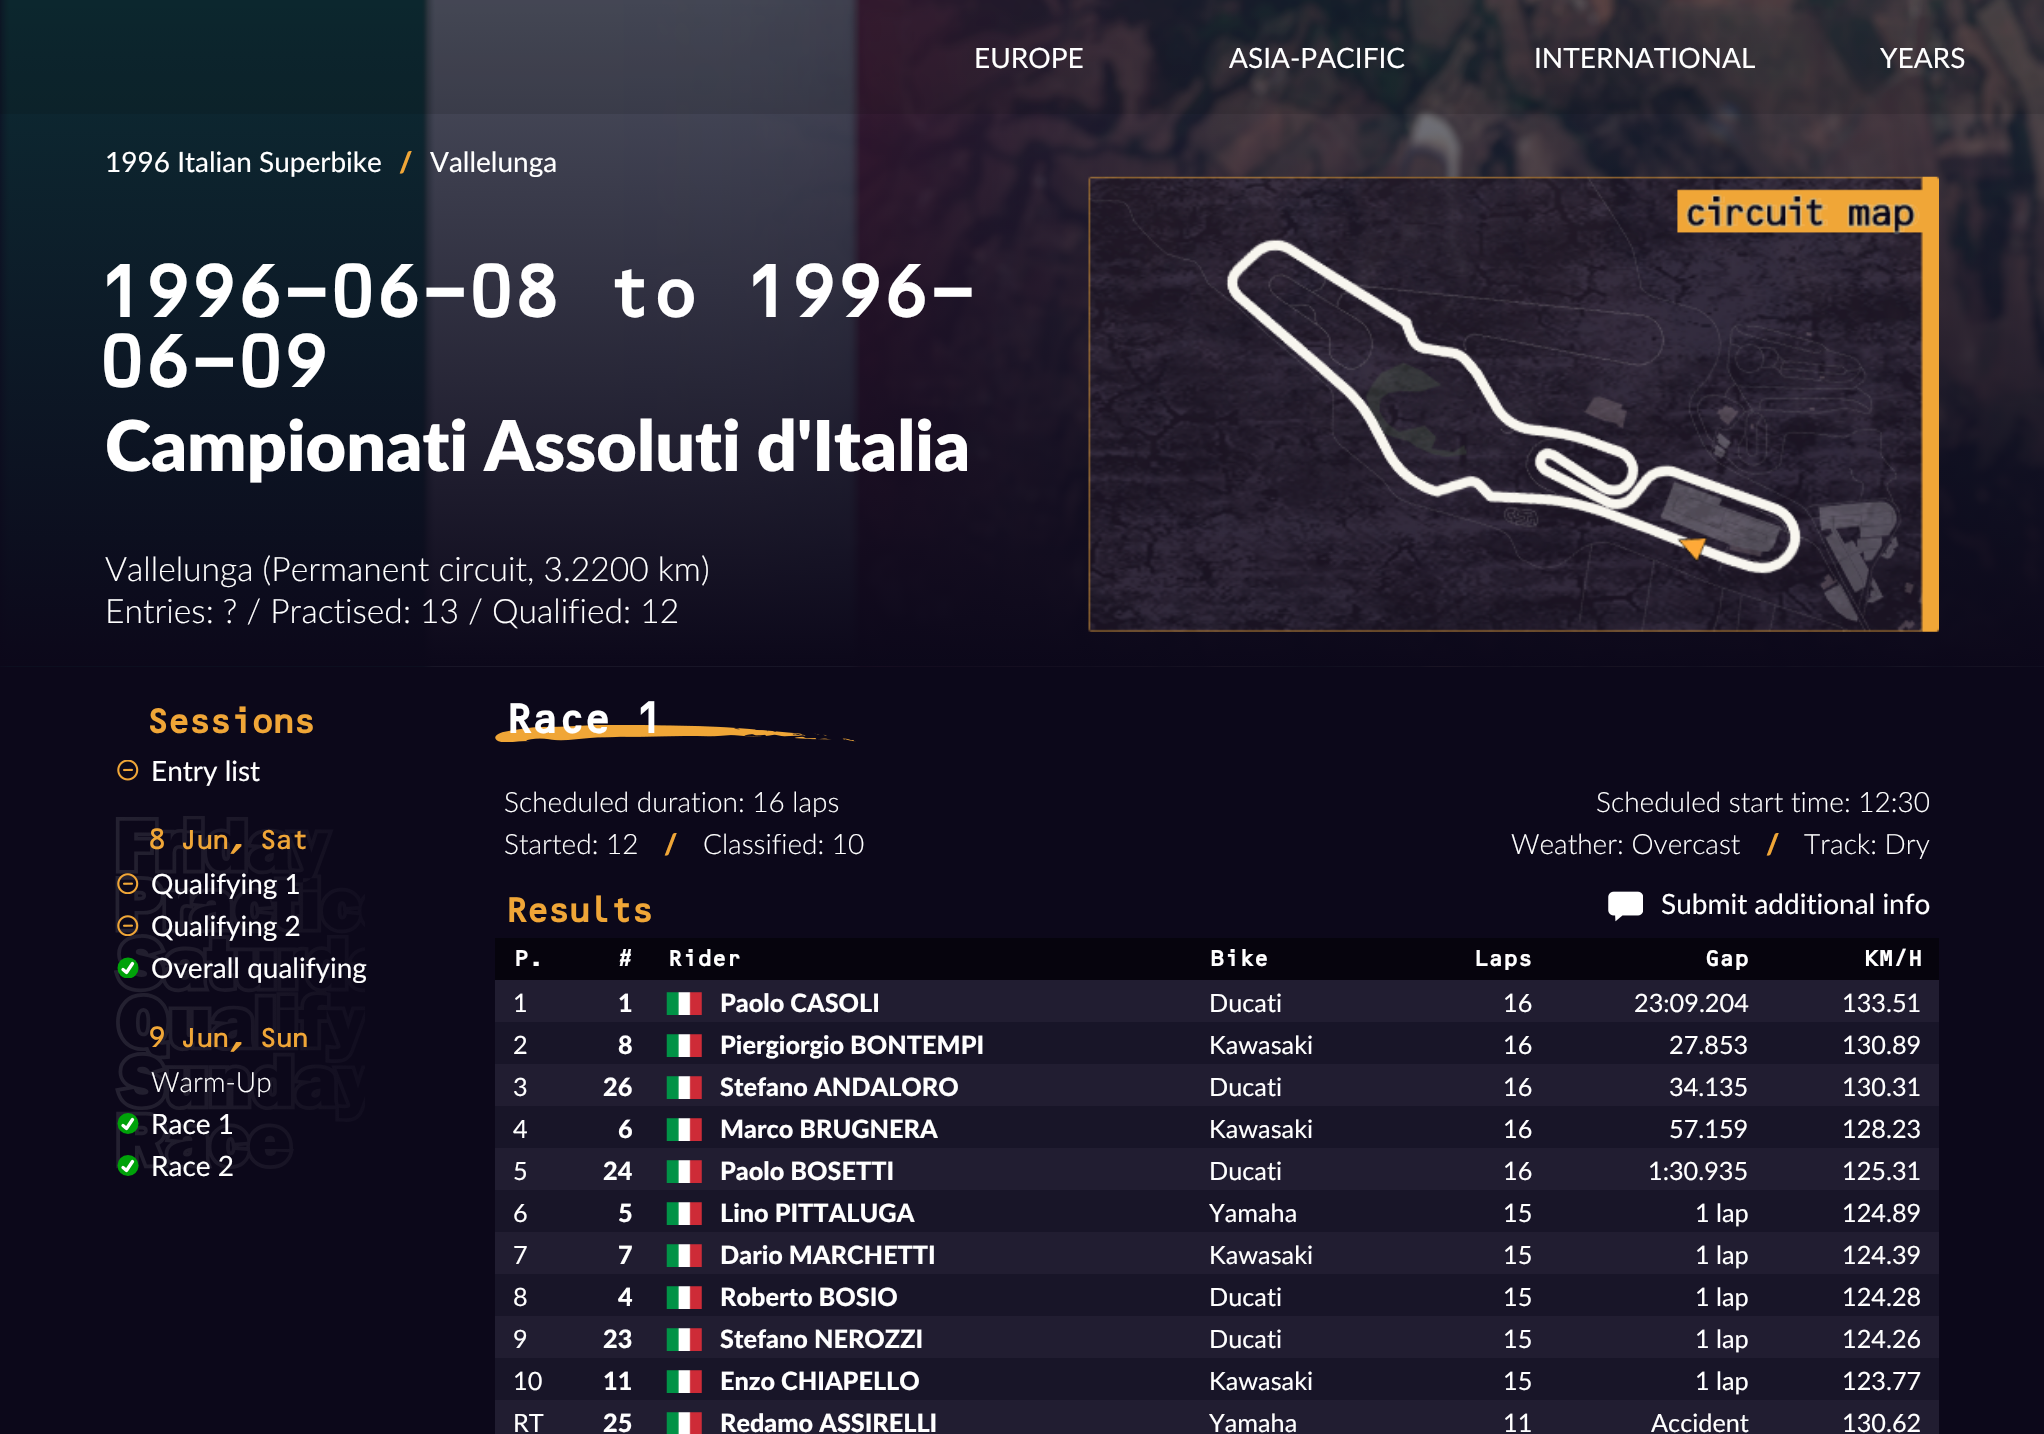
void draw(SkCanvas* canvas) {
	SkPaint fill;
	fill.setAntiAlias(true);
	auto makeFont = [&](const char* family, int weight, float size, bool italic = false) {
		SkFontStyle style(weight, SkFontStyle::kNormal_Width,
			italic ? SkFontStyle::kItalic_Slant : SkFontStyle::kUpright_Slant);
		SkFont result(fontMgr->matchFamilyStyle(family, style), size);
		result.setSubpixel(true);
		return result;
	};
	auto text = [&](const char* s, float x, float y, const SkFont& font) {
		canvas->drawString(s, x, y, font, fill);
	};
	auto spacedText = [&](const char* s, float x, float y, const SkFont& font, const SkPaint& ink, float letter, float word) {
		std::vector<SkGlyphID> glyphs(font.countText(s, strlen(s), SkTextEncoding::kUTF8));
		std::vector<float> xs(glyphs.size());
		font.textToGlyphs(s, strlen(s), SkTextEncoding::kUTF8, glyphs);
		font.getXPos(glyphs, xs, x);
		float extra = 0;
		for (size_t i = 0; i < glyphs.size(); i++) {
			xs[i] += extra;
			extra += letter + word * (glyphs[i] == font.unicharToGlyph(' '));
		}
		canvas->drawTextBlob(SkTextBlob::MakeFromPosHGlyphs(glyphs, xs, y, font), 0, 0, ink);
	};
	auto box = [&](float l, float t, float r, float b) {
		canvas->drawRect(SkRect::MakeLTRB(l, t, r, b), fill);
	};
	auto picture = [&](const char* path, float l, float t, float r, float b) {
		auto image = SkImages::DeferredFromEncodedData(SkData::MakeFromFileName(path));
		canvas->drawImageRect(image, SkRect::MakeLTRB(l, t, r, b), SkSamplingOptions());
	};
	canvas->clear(0xFF0C081A);
	picture("image0.png", 0, 0, 2044, 667);
	fill.setColor(0x1F000000);
	box(0, 0, 2044, 114);
	picture("image1.png", 1088, 176, 1939, 632);
	picture("image2.png", 114, 816, 365, 1169);
	picture("image3.png", 117, 760, 139, 781);
	picture("image4.png", 117, 873, 139, 894);
	picture("image5.png", 117, 915, 139, 936);
	canvas->save();
	canvas->clipRect(SkRect::MakeLTRB(114, 957, 142, 978));
	fill.setColor(0xFF00A209);
	canvas->drawCircle(128, 968, 10.5f, fill);
	canvas->restore();
	fill.setStyle(SkPaint::kStroke_Style);
	fill.setStrokeWidth(3.3f);
	fill.setStrokeCap(SkPaint::kRound_Cap);
	fill.setStrokeJoin(SkPaint::kRound_Join);
	fill.setColor(0xFFFFFFFF);
	canvas->drawPath(SkPathBuilder().moveTo(123, 969.5f).lineTo(126.5f, 972.5f).lineTo(132.5f, 963.5f).detach(), fill);
	fill.setStyle(SkPaint::kFill_Style);
	fill.setColor(0xFF00A209);
	canvas->drawCircle(128, 1123.5f, 10.5f, fill);
	fill.setStyle(SkPaint::kStroke_Style);
	fill.setColor(0xFFFFFFFF);
	canvas->drawPath(SkPathBuilder().moveTo(123, 1125.5f).lineTo(126.5f, 1128.5f).lineTo(132.5f, 1119.5f).detach(), fill);
	fill.setStyle(SkPaint::kFill_Style);
	fill.setColor(0xFF00A209);
	canvas->drawCircle(128, 1165.5f, 10.5f, fill);
	fill.setStyle(SkPaint::kStroke_Style);
	fill.setColor(0xFFFFFFFF);
	canvas->drawPath(SkPathBuilder().moveTo(123, 1167.5f).lineTo(126.5f, 1170.5f).lineTo(132.5f, 1161.5f).detach(), fill);
	picture("image6.png", 495, 725, 856, 742);
	picture("image7.png", 1608, 891, 1643, 922);
	fill.setStyle(SkPaint::kFill_Style);
	fill.setColor(0xFF06040D);
	box(495, 938, 1549, 980);
	box(1549, 938, 1939, 980);
	fill.setColor(0xFF211D31);
	box(495, 980, 1939, 1022);
	picture("image8.png", 666, 992, 702, 1015);
	fill.setColor(0xFF181528);
	box(495, 1022, 1939, 1064);
	picture("image9.png", 666, 1034, 702, 1057);
	fill.setColor(0xFF211D31);
	box(495, 1064, 1939, 1106);
	picture("image8.png", 666, 1076, 702, 1099);
	fill.setColor(0xFF181528);
	box(495, 1106, 1939, 1148);
	picture("image9.png", 666, 1118, 702, 1141);
	fill.setColor(0xFF211D31);
	box(495, 1148, 1939, 1190);
	picture("image8.png", 666, 1160, 702, 1183);
	fill.setColor(0xFF181528);
	box(495, 1190, 1939, 1232);
	picture("image9.png", 666, 1202, 702, 1225);
	fill.setColor(0xFF211D31);
	box(495, 1232, 1939, 1274);
	picture("image8.png", 666, 1244, 702, 1267);
	fill.setColor(0xFF181528);
	box(495, 1274, 1939, 1316);
	picture("image9.png", 666, 1286, 702, 1309);
	fill.setColor(0xFF211D31);
	box(495, 1316, 1939, 1358);
	picture("image8.png", 666, 1328, 702, 1351);
	fill.setColor(0xFF181528);
	box(495, 1358, 1939, 1400);
	picture("image9.png", 666, 1370, 702, 1393);
	fill.setColor(0xFF211D31);
	box(495, 1400, 1939, 1434);
	picture("image10.png", 666, 1412, 702, 1434);
	auto font1 = makeFont("Lato", 400, 28);
	fill.setColor(0xFFFFFFFF);
	text("EUROPE", 974, 68, font1);
	text("ASIA-PACIFIC", 1229, 68, font1);
	text("INTERNATIONAL", 1534, 68, font1);
	text("YEARS", 1880, 68, font1);
	text("1996 Italian Superbike", 105, 172, font1);
	auto font2 = makeFont("Lato", 900, 28);
	fill.setColor(0xFFF0A637);
	text("/", 399, 172, font2);
	fill.setColor(0xFFFFFFFF);
	text("Vallelunga", 430, 172, font1);
	auto font3 = makeFont("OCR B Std", 700, 70);
	spacedText("1996-06-08 to 1996-", 96, 317, font3, fill, -4.25f, 0);
	spacedText("06-09", 96, 387, font3, fill, -4.25f, 0);
	auto font4 = makeFont("Lato", 900, 70);
	text("Campionati Assoluti d'Italia", 105, 471, font4);
	auto font5 = makeFont("Lato", 300, 33.6f);
	text("Vallelunga (Permanent circuit, 3.2200 km)", 105, 581, font5);
	text("Entries: ? / Practised: 13 / Qualified: 12", 105, 623, font5);
	auto font6 = makeFont("OCR B Std", 700, 35);
	fill.setColor(0xFFF0A637);
	spacedText("Sessions", 145, 733, font6, fill, -4.25f, 0);
	fill.setColor(0xFFFFFFFF);
	text("Entry list", 151, 781, font1);
	auto font7 = makeFont("OCR B Std", 400, 28);
	fill.setColor(0xFFF0A637);
	spacedText("8 Jun, Sat", 147, 849, font7, fill, -4.25f, 0);
	fill.setColor(0xFFFFFFFF);
	text("Qualifying 1", 151, 894, font1);
	text("Qualifying 2", 151, 936, font1);
	text("Overall qualifying", 151, 978, font1);
	fill.setColor(0xFFF0A637);
	spacedText("9 Jun, Sun", 147, 1047, font7, fill, -4.25f, 0);
	auto font8 = makeFont("Lato", 300, 28);
	fill.setColor(0xFFFFFFFF);
	text("Warm-Up", 151, 1092, font8);
	text("Race 1", 151, 1134, font1);
	text("Race 2", 151, 1176, font1);
	auto font9 = makeFont("OCR B Std", 700, 42);
	spacedText("Race 1", 504, 733, font9, fill, -4.25f, 0);
	text("Scheduled duration: 16 laps", 504, 812, font8);
	text("Started: 12", 504, 854, font8);
	fill.setColor(0xFFF0A637);
	text("/", 664, 854, font2);
	fill.setColor(0xFFFFFFFF);
	text("Classified: 10", 703, 854, font8);
	text("Scheduled start time: 12:30", 1596, 812, font8);
	text("Weather: Overcast", 1511, 854, font8);
	fill.setColor(0xFFF0A637);
	text("/", 1766, 854, font2);
	fill.setColor(0xFFFFFFFF);
	text("Track: Dry", 1804, 854, font8);
	fill.setColor(0xFFF0A637);
	spacedText("Results", 504, 922, font6, fill, -4.25f, 0);
	fill.setColor(0xFFFFFFFF);
	text("Submit additional info", 1661, 914, font1);
	auto font10 = makeFont("OCR B Std", 700, 22.5f);
	spacedText("P.", 513, 966, font10, fill, -1.5f, 0);
	spacedText("#", 617, 966, font10, fill, -1.5f, 0);
	spacedText("Rider", 667, 966, font10, fill, -1.5f, 0);
	spacedText("Bike", 1209, 966, font10, fill, -1.5f, 0);
	spacedText("Laps", 1473, 966, font10, fill, -1.5f, 0);
	spacedText("Gap", 1704, 966, font10, fill, -1.5f, 0);
	spacedText("KM/H", 1863, 966, font10, fill, -1.5f, 0);
	auto font11 = makeFont("Lato", 400, 25.25f);
	text("1", 513, 1012, font11);
	auto font12 = makeFont("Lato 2", 900, 25.25f);
	text("1", 618, 1012, font12);
	text("Paolo CASOLI", 720, 1012, font12);
	text("Ducati", 1209, 1012, font11);
	text("16", 1503, 1012, font11);
	text("23:09.204", 1634, 1012, font11);
	text("133.51", 1842, 1012, font11);
	text("2", 513, 1054, font11);
	text("8", 618, 1054, font12);
	text("Piergiorgio BONTEMPI", 720, 1054, font12);
	text("Kawasaki", 1209, 1054, font11);
	text("16", 1503, 1054, font11);
	text("27.853", 1669, 1054, font11);
	text("130.89", 1842, 1054, font11);
	text("3", 513, 1096, font11);
	text("26", 603, 1096, font12);
	text("Stefano ANDALORO", 720, 1096, font12);
	text("Ducati", 1209, 1096, font11);
	text("16", 1503, 1096, font11);
	text("34.135", 1669, 1096, font11);
	text("130.31", 1842, 1096, font11);
	text("4", 513, 1138, font11);
	text("6", 618, 1138, font12);
	text("Marco BRUGNERA", 720, 1138, font12);
	text("Kawasaki", 1209, 1138, font11);
	text("16", 1503, 1138, font11);
	text("57.159", 1669, 1138, font11);
	text("128.23", 1842, 1138, font11);
	text("5", 513, 1180, font11);
	text("24", 603, 1180, font12);
	text("Paolo BOSETTI", 720, 1180, font12);
	text("Ducati", 1209, 1180, font11);
	text("16", 1503, 1180, font11);
	text("1:30.935", 1648, 1180, font11);
	text("125.31", 1842, 1180, font11);
	text("6", 513, 1222, font11);
	text("5", 618, 1222, font12);
	text("Lino PITTALUGA", 720, 1222, font12);
	text("Yamaha", 1209, 1222, font11);
	text("15", 1503, 1222, font11);
	text("1 lap", 1695, 1222, font11);
	text("124.89", 1842, 1222, font11);
	text("7", 513, 1264, font11);
	text("7", 618, 1264, font12);
	text("Dario MARCHETTI", 720, 1264, font12);
	text("Kawasaki", 1209, 1264, font11);
	text("15", 1503, 1264, font11);
	text("1 lap", 1695, 1264, font11);
	text("124.39", 1842, 1264, font11);
	text("8", 513, 1306, font11);
	text("4", 618, 1306, font12);
	text("Roberto BOSIO", 720, 1306, font12);
	text("Ducati", 1209, 1306, font11);
	text("15", 1503, 1306, font11);
	text("1 lap", 1695, 1306, font11);
	text("124.28", 1842, 1306, font11);
	text("9", 513, 1348, font11);
	text("23", 603, 1348, font12);
	text("Stefano NEROZZI", 720, 1348, font12);
	text("Ducati", 1209, 1348, font11);
	text("15", 1503, 1348, font11);
	text("1 lap", 1695, 1348, font11);
	text("124.26", 1842, 1348, font11);
	text("10", 513, 1390, font11);
	text("11", 603, 1390, font12);
	text("Enzo CHIAPELLO", 720, 1390, font12);
	text("Kawasaki", 1209, 1390, font11);
	text("15", 1503, 1390, font11);
	text("1 lap", 1695, 1390, font11);
	text("123.77", 1842, 1390, font11);
	text("RT", 513, 1432, font11);
	text("25", 603, 1432, font12);
	text("Redamo ASSIRELLI", 720, 1432, font12);
	text("Yamaha", 1209, 1432, font11);
	text("11", 1503, 1432, font11);
	text("Accident", 1651, 1432, font11);
	text("130.62", 1842, 1432, font11);
}
